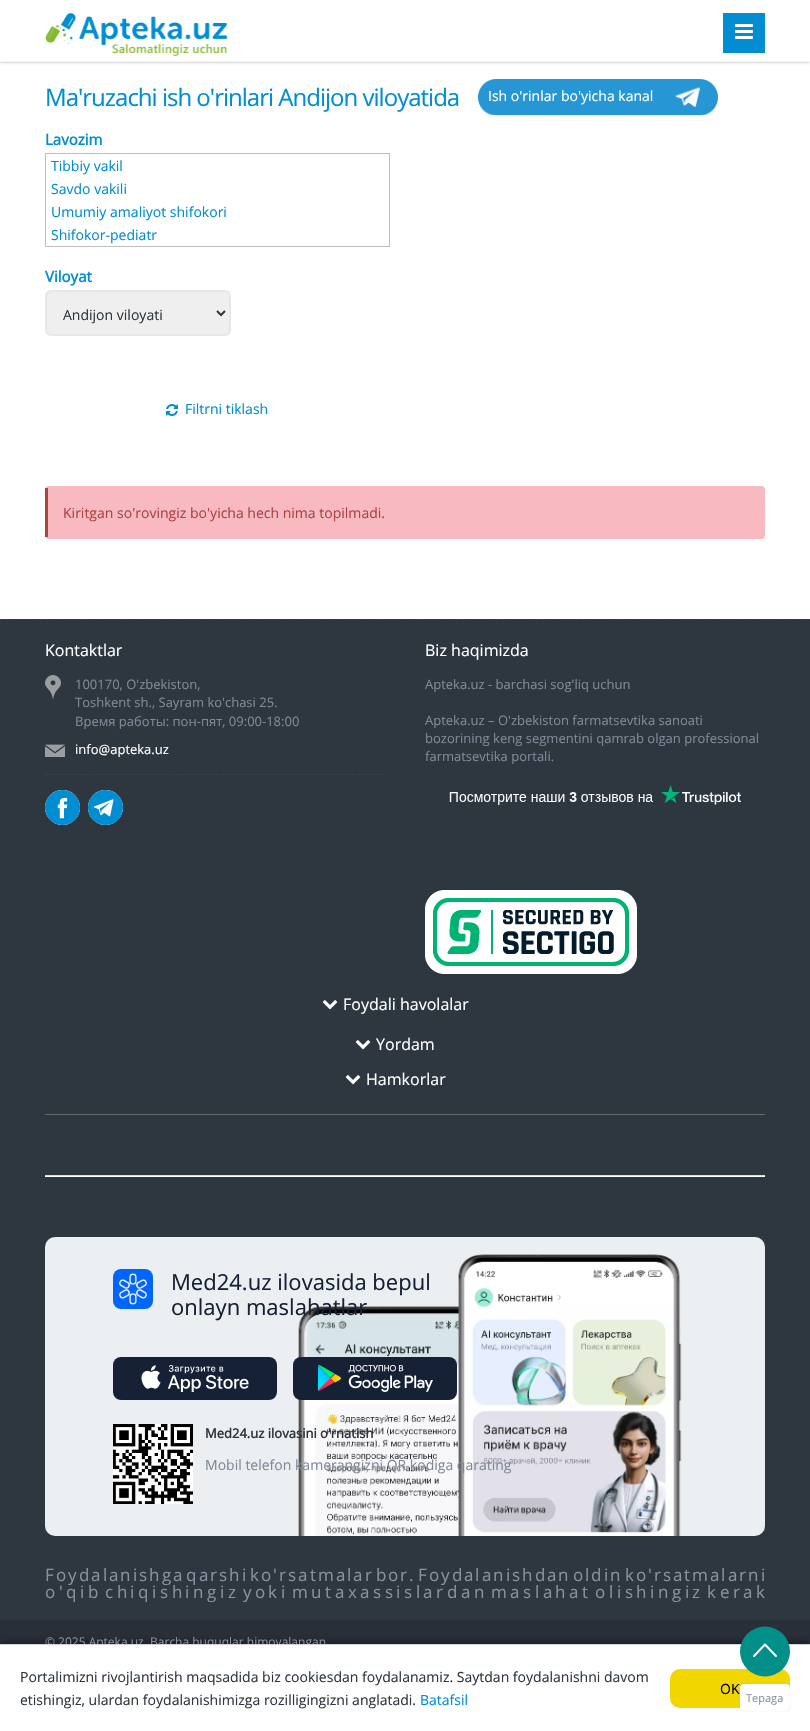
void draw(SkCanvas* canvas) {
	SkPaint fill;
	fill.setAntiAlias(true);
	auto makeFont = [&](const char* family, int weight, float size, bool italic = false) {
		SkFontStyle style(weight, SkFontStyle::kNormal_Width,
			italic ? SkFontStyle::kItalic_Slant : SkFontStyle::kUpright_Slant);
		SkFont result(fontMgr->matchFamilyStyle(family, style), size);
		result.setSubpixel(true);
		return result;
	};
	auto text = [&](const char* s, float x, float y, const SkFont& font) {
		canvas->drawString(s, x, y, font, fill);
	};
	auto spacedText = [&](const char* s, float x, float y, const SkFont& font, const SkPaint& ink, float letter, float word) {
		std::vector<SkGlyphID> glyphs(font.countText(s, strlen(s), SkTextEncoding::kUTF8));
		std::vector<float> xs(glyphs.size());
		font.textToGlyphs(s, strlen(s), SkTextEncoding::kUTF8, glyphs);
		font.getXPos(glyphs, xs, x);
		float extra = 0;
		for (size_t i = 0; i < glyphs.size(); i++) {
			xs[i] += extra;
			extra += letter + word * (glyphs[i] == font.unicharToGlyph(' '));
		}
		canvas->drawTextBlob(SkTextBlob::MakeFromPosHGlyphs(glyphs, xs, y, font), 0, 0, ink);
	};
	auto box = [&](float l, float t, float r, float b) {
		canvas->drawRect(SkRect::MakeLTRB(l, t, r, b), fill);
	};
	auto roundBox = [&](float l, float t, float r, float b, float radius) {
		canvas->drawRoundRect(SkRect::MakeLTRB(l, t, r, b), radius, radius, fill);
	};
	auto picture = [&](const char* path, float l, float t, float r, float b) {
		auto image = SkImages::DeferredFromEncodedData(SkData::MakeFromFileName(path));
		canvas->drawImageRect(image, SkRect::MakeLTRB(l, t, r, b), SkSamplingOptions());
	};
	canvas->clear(0xFFFFFFFF);
	fill.setColor(0x4D000000);
	fill.setMaskFilter(SkMaskFilter::MakeBlur(kNormal_SkBlurStyle, 1.5f));
	canvas->drawRect(SkRect::MakeLTRB(0, 0, 810, 62), fill);
	fill.setMaskFilter(nullptr);
	fill.setColor(0xFFFFFFFF);
	box(0, 0, 810, 61);
	fill.setColor(0xFFF4F5F7);
	box(0, 61, 810, 62);
	picture("image0.png", 45, 13, 228, 56);
	fill.setColor(0xFF028DD3);
	box(723, 13, 765, 53);
	picture("image1.png", 735, 24, 753, 39);
	picture("image2.png", 478, 79, 718, 115);
	fill.setStyle(SkPaint::kStroke_Style);
	fill.setStrokeWidth(1);
	fill.setColor(0xFFBEBEBE);
	canvas->drawRect(SkRect::MakeLTRB(45.5f, 153.5f, 389.5f, 246.5f), fill);
	fill.setStyle(SkPaint::kFill_Style);
	fill.setColor(0xFFEFEFEF);
	canvas->drawRoundRect(SkRect::MakeLTRB(46, 291, 230, 335), 5, 5, fill);
	fill.setStyle(SkPaint::kStroke_Style);
	fill.setStrokeWidth(2);
	fill.setColor(0xFFE5E7E9);
	canvas->drawRoundRect(SkRect::MakeLTRB(46, 291, 230, 335), 5, 5, fill);
	fill.setColor(0xFF2E363F);
	canvas->drawPath(SkPathBuilder().moveTo(217, 311).lineTo(221, 315).lineTo(225, 311).detach(), fill);
	picture("image3.png", 166, 404, 178, 416);
	fill.setStyle(SkPaint::kFill_Style);
	fill.setColor(0xFFF8BAC0);
	roundBox(45, 486, 765, 539, 4);
	fill.setColor(0xFFA94442);
	box(45, 488, 48, 537);
	fill.setColor(0xFF2E363F);
	box(0, 619, 810, 1620);
	fill.setStyle(SkPaint::kStroke_Style);
	fill.setStrokeWidth(1);
	fill.setColor(0xFF403E44);
	fill.setPathEffect(SkDashPathEffect::Make({{3, 2.01f}}, 0));
	canvas->drawPath(SkPathBuilder().moveTo(0, 619.5f).lineTo(810, 619.5f).detach(), fill);
	fill.setPathEffect(nullptr);
	fill.setStyle(SkPaint::kFill_Style);
	fill.setColor(0xFF676767);
	box(45, 1114, 765, 1115);
	picture("image4.png", 45, 675, 64, 700);
	picture("image5.png", 45, 744, 65, 757);
	fill.setStyle(SkPaint::kStroke_Style);
	fill.setColor(0xFF403E44);
	fill.setPathEffect(SkDashPathEffect::Make({{3, 2.03f}}, 0));
	canvas->drawPath(SkPathBuilder().moveTo(45, 774.5f).lineTo(385, 774.5f).detach(), fill);
	fill.setPathEffect(nullptr);
	fill.setStyle(SkPaint::kFill_Style);
	fill.setColor(0xFFFFFFFF);
	canvas->drawCircle(62.5f, 807.5f, 17.5f, fill);
	picture("image6.png", 45, 790, 80, 825);
	canvas->drawCircle(105.5f, 807.5f, 17.5f, fill);
	picture("image7.png", 88, 790, 123, 825);
	picture("image8.png", 449, 785, 741, 805);
	picture("image9.png", 425, 890, 637, 974);
	picture("image10.png", 322, 1000, 338, 1010);
	picture("image10.png", 355, 1040, 371, 1050);
	picture("image10.png", 345, 1075, 361, 1085);
	fill.setColor(0xFFDDDDDD);
	box(45, 1175, 765, 1176);
	fill.setColor(0xFFFFFFFF);
	box(45, 1176, 765, 1177);
	fill.setColor(0xFFECEFF1);
	roundBox(45, 1237, 765, 1536, 10);
	picture("image11.png", 298, 1254, 682, 1536);
	picture("image12.png", 113, 1269, 153, 1309);
	fill.setColor(0xFF162136);
	roundBox(113, 1357, 277, 1400, 8);
	picture("image13.png", 141, 1365, 249, 1392);
	roundBox(293, 1357, 457, 1400, 8);
	picture("image14.png", 318, 1364, 433, 1392);
	picture("image15.png", 113, 1424, 193, 1504);
	fill.setColor(0xFF292F38);
	box(0, 1620, 810, 1644);
	fill.setColor(0xBF000000);
	fill.setMaskFilter(SkMaskFilter::MakeBlur(kNormal_SkBlurStyle, 5));
	canvas->drawRect(SkRect::MakeLTRB(0, 1645, 810, 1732), fill);
	fill.setMaskFilter(nullptr);
	auto font1 = makeFont("Open Sans", 400, 24);
	fill.setColor(0xFF008DD2);
	spacedText("Ma'ruzachi ish o'rinlari Andijon viloyatida", 45, 106, font1, fill, -1, 0);
	auto font2 = makeFont("Open Sans", 400, 14);
	fill.setColor(0xFFFFFFFF);
	text("Ish o'rinlar bo'yicha kanal", 488, 101, font2);
	auto font3 = makeFont("Open Sans", 700, 15);
	fill.setColor(0xFF008DD2);
	text("Lavozim", 45, 145, font3);
	text("Tibbiy vakil", 51, 171, font2);
	text("Savdo vakili", 51, 194, font2);
	text("Umumiy amaliyot shifokori", 51, 217, font2);
	text("Shifokor-pediatr", 51, 240, font2);
	text("Viloyat", 45, 282, font3);
	fill.setColor(0xFF2E363F);
	text("Andijon viloyati", 63, 320, font2);
	fill.setColor(0xFF008DD2);
	text("Filtrni tiklash", 185, 414, font2);
	fill.setColor(0xFFA94442);
	text("Kiritgan so'rovingiz bo'yicha hech nima topilmadi.", 63, 518, font2);
	auto font4 = makeFont("Open Sans", 400, 16);
	fill.setColor(0xFFFFFFFF);
	text("Kontaktlar", 45, 656, font4);
	auto font5 = makeFont("Open Sans", 400, 13);
	fill.setColor(0xFF7E8998);
	text("100170, O'zbekiston,", 75, 689, font5);
	text("Toshkent sh., Sayram ko'chasi 25.", 75, 707, font5);
	text("Время работы: пон-пят, 09:00-18:00", 75, 726, font5);
	fill.setColor(0xFFFFFFFF);
	text("info@apteka.uz", 75, 754, font5);
	text("Biz haqimizda", 425, 656, font4);
	fill.setColor(0xFF7E8998);
	text("Apteka.uz - barchasi sog'liq uchun", 425, 689, font5);
	text("Apteka.uz – O'zbekiston farmatsevtika sanoati", 425, 725, font5);
	text("bozorining keng segmentini qamrab olgan professional", 425, 743, font5);
	text("farmatsevtika portali.", 425, 761, font5);
	fill.setColor(0xFFFFFFFF);
	text("Foydali havolalar", 343, 1010, font4);
	text("Yordam", 376, 1050, font4);
	text("Hamkorlar", 366, 1085, font4);
	auto font6 = makeFont("Open Sans", 400, 22);
	fill.setColor(0xFF162136);
	text("Med24.uz ilovasida bepul", 171, 1290, font6);
	text("onlayn maslahatlar", 171, 1315, font6);
	auto font7 = makeFont("Open Sans", 700, 13);
	fill.setColor(0xFF2E363F);
	text("Med24.uz ilovasini o'rnatish", 205, 1438, font7);
	fill.setColor(0xFF7E8998);
	text("Mobil telefon kamerangizni QR kodiga qarating", 205, 1470, font2);
	auto font8 = makeFont("Open Sans", 400, 17);
	fill.setColor(0xFF87919F);
	text("F", 45, 1581, font8);
	text("o", 56, 1581, font8);
	text("y", 68, 1581, font8);
	text("d", 79, 1581, font8);
	text("a", 91, 1581, font8);
	text("l", 103, 1581, font8);
	text("a", 109, 1581, font8);
	text("n", 120, 1581, font8);
	text("i", 133, 1581, font8);
	text("s", 139, 1581, font8);
	text("h", 149, 1581, font8);
	text("g", 162, 1581, font8);
	text("a", 173, 1581, font8);
	text("q", 186, 1581, font8);
	text("a", 199, 1581, font8);
	text("r", 210, 1581, font8);
	text("s", 219, 1581, font8);
	text("h", 229, 1581, font8);
	text("i", 242, 1581, font8);
	text("k", 250, 1581, font8);
	text("o", 261, 1581, font8);
	text("'", 273, 1581, font8);
	text("r", 279, 1581, font8);
	text("s", 288, 1581, font8);
	text("a", 298, 1581, font8);
	text("t", 310, 1581, font8);
	text("m", 318, 1581, font8);
	text("a", 336, 1581, font8);
	text("l", 347, 1581, font8);
	text("a", 353, 1581, font8);
	text("r", 365, 1581, font8);
	text("b", 376, 1581, font8);
	text("o", 388, 1581, font8);
	text("r", 400, 1581, font8);
	text(".", 409, 1581, font8);
	text("F", 418, 1581, font8);
	text("o", 429, 1581, font8);
	text("y", 441, 1581, font8);
	text("d", 452, 1581, font8);
	text("a", 464, 1581, font8);
	text("l", 475, 1581, font8);
	text("a", 482, 1581, font8);
	text("n", 493, 1581, font8);
	text("i", 506, 1581, font8);
	text("s", 512, 1581, font8);
	text("h", 522, 1581, font8);
	text("d", 535, 1581, font8);
	text("a", 547, 1581, font8);
	text("n", 558, 1581, font8);
	text("o", 573, 1581, font8);
	text("l", 585, 1581, font8);
	text("d", 591, 1581, font8);
	text("i", 604, 1581, font8);
	text("n", 610, 1581, font8);
	text("k", 625, 1581, font8);
	text("o", 636, 1581, font8);
	text("'", 648, 1581, font8);
	text("r", 654, 1581, font8);
	text("s", 663, 1581, font8);
	text("a", 673, 1581, font8);
	text("t", 684, 1581, font8);
	text("m", 692, 1581, font8);
	text("a", 710, 1581, font8);
	text("l", 721, 1581, font8);
	text("a", 728, 1581, font8);
	text("r", 739, 1581, font8);
	text("n", 748, 1581, font8);
	text("i", 761, 1581, font8);
	text("o", 45, 1598, font8);
	text("'", 59, 1598, font8);
	text("q", 66, 1598, font8);
	text("i", 80, 1598, font8);
	text("b", 88, 1598, font8);
	text("c", 105, 1598, font8);
	text("h", 117, 1598, font8);
	text("i", 130, 1598, font8);
	text("q", 138, 1598, font8);
	text("i", 152, 1598, font8);
	text("s", 160, 1598, font8);
	text("h", 172, 1598, font8);
	text("i", 185, 1598, font8);
	text("n", 193, 1598, font8);
	text("g", 207, 1598, font8);
	text("i", 220, 1598, font8);
	text("z", 228, 1598, font8);
	text("y", 243, 1598, font8);
	text("o", 255, 1598, font8);
	text("k", 268, 1598, font8);
	text("i", 281, 1598, font8);
	text("m", 292, 1598, font8);
	text("u", 311, 1598, font8);
	text("t", 325, 1598, font8);
	text("a", 335, 1598, font8);
	text("x", 348, 1598, font8);
	text("a", 360, 1598, font8);
	text("s", 373, 1598, font8);
	text("s", 385, 1598, font8);
	text("i", 396, 1598, font8);
	text("s", 404, 1598, font8);
	text("l", 416, 1598, font8);
	text("a", 423, 1598, font8);
	text("r", 436, 1598, font8);
	text("d", 447, 1598, font8);
	text("a", 461, 1598, font8);
	text("n", 474, 1598, font8);
	text("m", 491, 1598, font8);
	text("a", 510, 1598, font8);
	text("s", 523, 1598, font8);
	text("l", 535, 1598, font8);
	text("a", 543, 1598, font8);
	text("h", 555, 1598, font8);
	text("a", 569, 1598, font8);
	text("t", 582, 1598, font8);
	text("o", 595, 1598, font8);
	text("l", 609, 1598, font8);
	text("i", 617, 1598, font8);
	text("s", 625, 1598, font8);
	text("h", 636, 1598, font8);
	text("i", 650, 1598, font8);
	text("n", 658, 1598, font8);
	text("g", 672, 1598, font8);
	text("i", 685, 1598, font8);
	text("z", 692, 1598, font8);
	text("k", 707, 1598, font8);
	text("e", 720, 1598, font8);
	text("r", 733, 1598, font8);
	text("a", 743, 1598, font8);
	text("k", 756, 1598, font8);
	auto font9 = makeFont("Open Sans", 400, 12);
	text("© 2025 Apteka.uz. Barcha huquqlar himoyalangan", 45, 1646, font9);
	fill.setColor(0xFFFFFFFF);
	box(0, 1645, 810, 1731);
	fill.setColor(0xFFD3D3D3);
	box(0, 1644, 810, 1645);
	fill.setColor(0xFF2E363F);
	text("Portalimizni rivojlantirish maqsadida biz cookiesdan foydalanamiz. Saytdan foydalanishni davom", 20, 1682, font2);
	text("etishingiz, ulardan foydalanishimizga rozilligingizni anglatadi.", 20, 1705, font2);
	fill.setColor(0xFF008DD2);
	text("Batafsil", 420, 1705, font2);
	fill.setColor(0xFFF1D600);
	roundBox(670, 1669, 790, 1708, 10);
	fill.setColor(0xFF028F8A);
	canvas->drawCircle(765, 1651.5f, 25, fill);
	fill.setStyle(SkPaint::kStroke_Style);
	fill.setStrokeWidth(2);
	fill.setStrokeCap(SkPaint::kRound_Cap);
	fill.setStrokeJoin(SkPaint::kRound_Join);
	fill.setColor(0xFFFEFEFE);
	canvas->drawPath(SkPathBuilder().moveTo(754, 1656).lineTo(765, 1644.5f).lineTo(776, 1656).detach(), fill);
	fill.setStyle(SkPaint::kFill_Style);
	fill.setColor(0x33000000);
	fill.setMaskFilter(SkMaskFilter::MakeBlur(kNormal_SkBlurStyle, 0.5f));
	canvas->drawRoundRect(SkRect::MakeLTRB(740, 1684, 790, 1711), 4, 4, fill);
	fill.setMaskFilter(nullptr);
	fill.setColor(0xFFFFFFFF);
	roundBox(740, 1684, 790, 1711, 4);
	auto font10 = makeFont("Open Sans", 400, 11);
	fill.setColor(0xFF87919F);
	text("Tepaga", 746, 1702, font10);
	fill.setColor(0xFF000000);
	text("OK", 720, 1694, font2);
}
